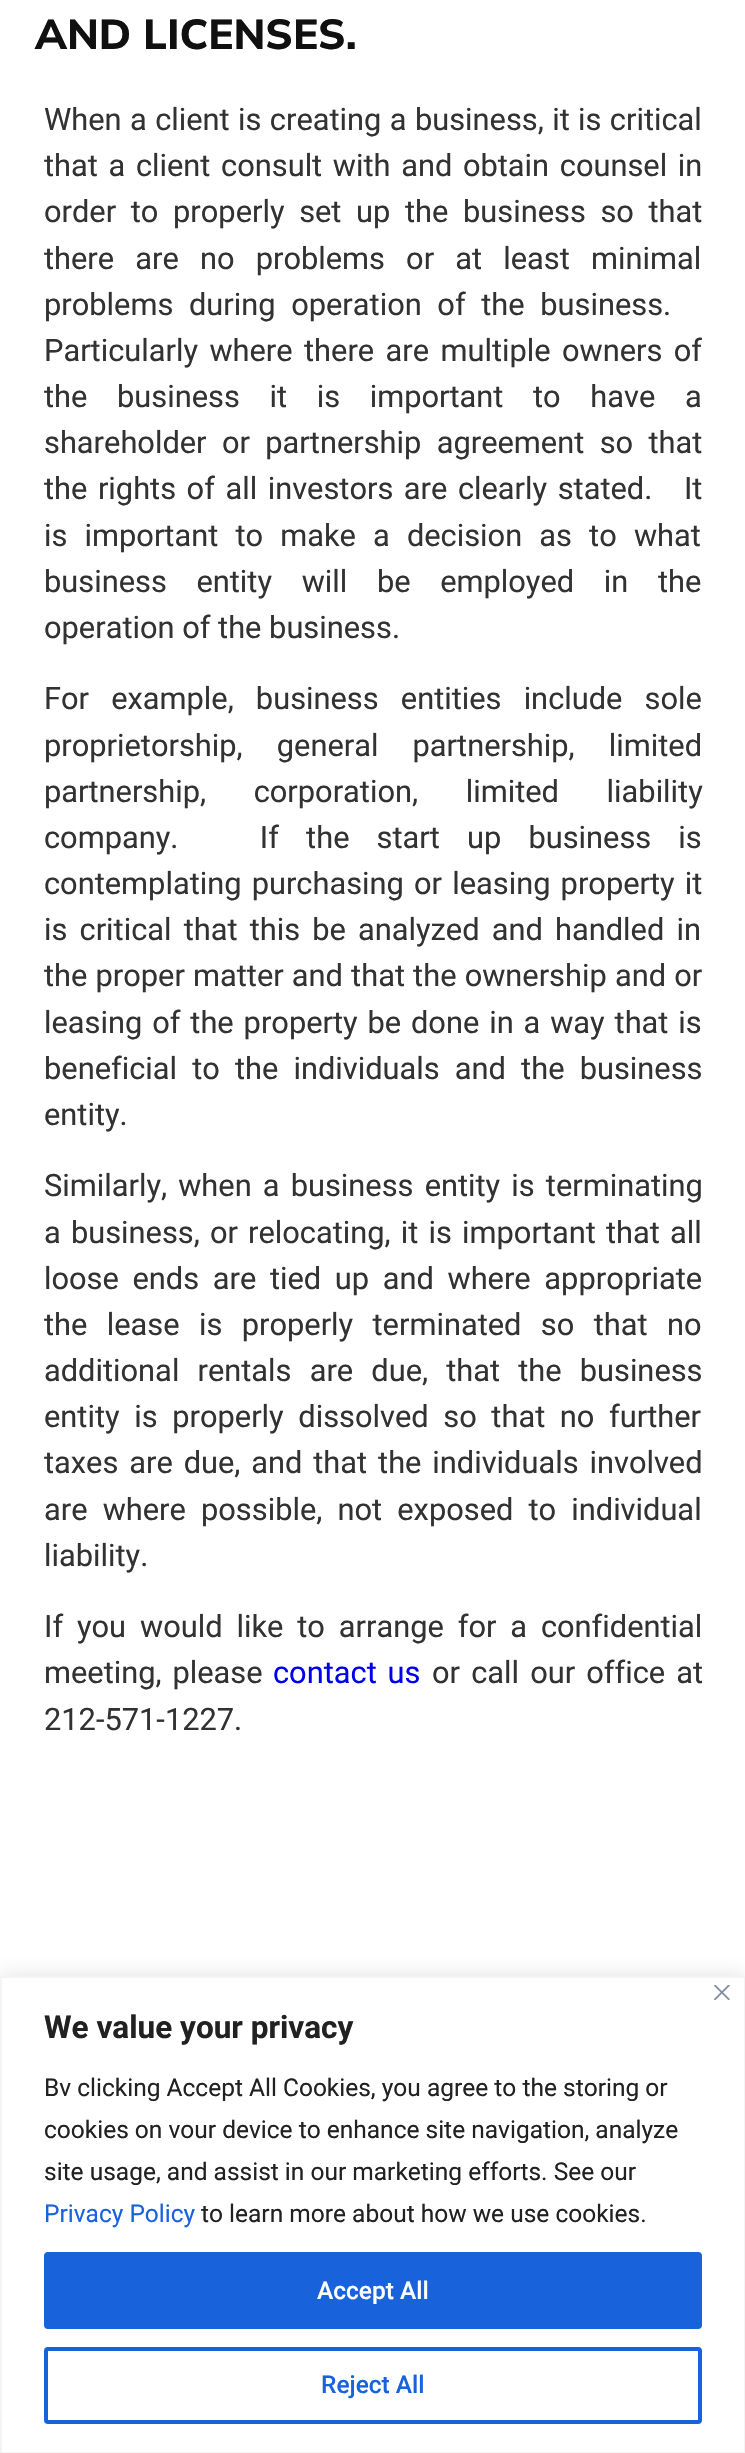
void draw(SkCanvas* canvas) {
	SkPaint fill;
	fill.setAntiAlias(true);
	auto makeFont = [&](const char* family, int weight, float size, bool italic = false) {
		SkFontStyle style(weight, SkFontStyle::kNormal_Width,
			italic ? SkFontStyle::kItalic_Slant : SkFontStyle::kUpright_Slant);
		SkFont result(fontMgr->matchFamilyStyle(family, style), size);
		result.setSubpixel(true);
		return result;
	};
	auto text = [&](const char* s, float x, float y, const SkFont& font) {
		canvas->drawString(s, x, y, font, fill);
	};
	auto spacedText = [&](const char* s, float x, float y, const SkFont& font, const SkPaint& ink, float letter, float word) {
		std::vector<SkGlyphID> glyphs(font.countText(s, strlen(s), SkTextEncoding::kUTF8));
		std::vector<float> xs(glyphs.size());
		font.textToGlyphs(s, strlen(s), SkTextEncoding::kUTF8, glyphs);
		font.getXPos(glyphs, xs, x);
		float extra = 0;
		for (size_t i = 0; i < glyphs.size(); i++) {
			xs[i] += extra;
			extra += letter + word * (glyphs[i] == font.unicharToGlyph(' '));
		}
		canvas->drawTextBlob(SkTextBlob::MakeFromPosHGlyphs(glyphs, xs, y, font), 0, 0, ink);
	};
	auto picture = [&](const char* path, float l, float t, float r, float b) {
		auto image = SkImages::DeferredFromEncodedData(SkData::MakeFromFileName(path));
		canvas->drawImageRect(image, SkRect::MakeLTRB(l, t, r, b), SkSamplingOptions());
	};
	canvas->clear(0xFFFFFFFF);
	fill.setColor(0x4DACABAB);
	fill.setMaskFilter(SkMaskFilter::MakeBlur(kNormal_SkBlurStyle, 9));
	canvas->drawRect(SkRect::MakeLTRB(0, 1974, 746, 2452), fill);
	fill.setMaskFilter(nullptr);
	fill.setColor(0xFFFFFFFF);
	canvas->drawRect(SkRect::MakeLTRB(1, 1977, 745, 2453), fill);
	fill.setStyle(SkPaint::kStroke_Style);
	fill.setStrokeWidth(2);
	fill.setColor(0xFFF4F4F4);
	canvas->drawRect(SkRect::MakeLTRB(1, 1977, 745, 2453), fill);
	picture("image0.png", 714, 1985, 730, 2000);
	fill.setStyle(SkPaint::kFill_Style);
	fill.setColor(0xFF1863DC);
	canvas->drawRoundRect(SkRect::MakeLTRB(46, 2254, 700, 2327), 2, 2, fill);
	fill.setStyle(SkPaint::kStroke_Style);
	fill.setStrokeWidth(4);
	canvas->drawRoundRect(SkRect::MakeLTRB(46, 2254, 700, 2327), 2, 2, fill);
	canvas->drawRoundRect(SkRect::MakeLTRB(46, 2349, 700, 2422), 2, 2, fill);
	auto font1 = makeFont("Mulish", 800, 42);
	fill.setStyle(SkPaint::kFill_Style);
	fill.setColor(0xFF101010);
	text("AND LICENSES.", 35, 49, font1);
	auto font2 = makeFont("Roboto", 400, 30.8f);
	fill.setColor(0xFF323232);
	spacedText("When a client is creating a business, it is critical", 44, 130, font2, fill, 0, 0.75f);
	spacedText("that a client consult with and obtain counsel in", 44, 176, font2, fill, 0, 3);
	spacedText("order to properly set up the business so that", 44, 222, font2, fill, 0, 7);
	spacedText("there are no problems or at least minimal", 44, 269, font2, fill, 0, 13.5f);
	spacedText("problems during operation of the business.", 44, 315, font2, fill, 0, 8);
	spacedText("Particularly where there are multiple owners of", 44, 361, font2, fill, 0, 3.75f);
	spacedText("the business it is important to have a", 44, 407, font2, fill, 0, 22);
	spacedText("shareholder or partnership agreement so that", 44, 453, font2, fill, 0, 7.75f);
	spacedText("the rights of all investors are clearly stated.   It", 44, 499, font2, fill, 0, 2.9f);
	spacedText("is important to make a decision as to what", 44, 546, font2, fill, 0, 9.5f);
	spacedText("business entity will be employed in the", 44, 592, font2, fill, 0, 22);
	text("operation of the business.", 44, 638, font2);
	spacedText("For example, business entities include sole", 44, 709, font2, fill, 0, 14.5f);
	spacedText("proprietorship, general partnership, limited", 44, 756, font2, fill, 0, 26.5f);
	spacedText("partnership, corporation, limited liability", 44, 802, font2, fill, 0, 40);
	spacedText("company.   If the start up business is", 44, 848, font2, fill, 0, 19.5f);
	spacedText("contemplating purchasing or leasing property it", 44, 894, font2, fill, 0, 2.5f);
	spacedText("is critical that this be analyzed and handled in", 44, 940, font2, fill, 0, 4.5f);
	spacedText("the proper matter and that the ownership and or", 44, 986, font2, fill, 0, 0.5f);
	spacedText("leasing of the property be done in a way that is", 44, 1033, font2, fill, 0, 2.25f);
	spacedText("beneficial to the individuals and the business", 44, 1079, font2, fill, 0, 7.5f);
	text("entity.", 44, 1125, font2);
	spacedText("Similarly, when a business entity is terminating", 44, 1196, font2, fill, 0, 3.5f);
	spacedText("a business, or relocating, it is important that all", 44, 1243, font2, fill, 0, 2.5f);
	spacedText("loose ends are tied up and where appropriate", 44, 1289, font2, fill, 0, 6);
	spacedText("the lease is properly terminated so that no", 44, 1335, font2, fill, 0, 11.75f);
	spacedText("additional rentals are due, that the business", 44, 1381, font2, fill, 0, 10.5f);
	spacedText("entity is properly dissolved so that no further", 44, 1427, font2, fill, 0, 7);
	spacedText("taxes are due, and that the individuals involved", 44, 1473, font2, fill, 0, 3.25f);
	spacedText("are where possible, not exposed to individual", 44, 1520, font2, fill, 0, 7.5f);
	text("liability.", 44, 1566, font2);
	spacedText("If you would like to arrange for a confidential", 44, 1637, font2, fill, 0, 6.25f);
	spacedText("meeting, please", 44, 1683, font2, fill, 0, 3.25f);
	fill.setColor(0xFF0000EE);
	spacedText("contact us", 273, 1683, font2, fill, 0, 3.25f);
	fill.setColor(0xFF323232);
	spacedText("or call our office at", 432, 1683, font2, fill, 0, 3.5f);
	text("212-571-1227.", 44, 1730, font2);
	auto font3 = makeFont("Roboto", 700, 31.5f);
	fill.setColor(0xFF212121);
	text("We value your privacy", 44, 2038, font3);
	auto font4 = makeFont("Roboto", 400, 24.5f);
	text("Bv clicking Accept All Cookies, you agree to the storing or", 44, 2096, font4);
	text("cookies on vour device to enhance site navigation, analyze", 44, 2138, font4);
	text("site usage, and assist in our marketing efforts. See our", 44, 2180, font4);
	fill.setColor(0xFF1863DC);
	text("Privacy Policy", 44, 2222, font4);
	fill.setColor(0xFF212121);
	text("to learn more about how we use cookies.", 201, 2222, font4);
	auto font5 = makeFont("Roboto", 500, 24.5f);
	fill.setColor(0xFFFFFFFF);
	text("Accept All", 317, 2299, font5);
	fill.setColor(0xFF1863DC);
	text("Reject All", 321, 2393, font5);
}
